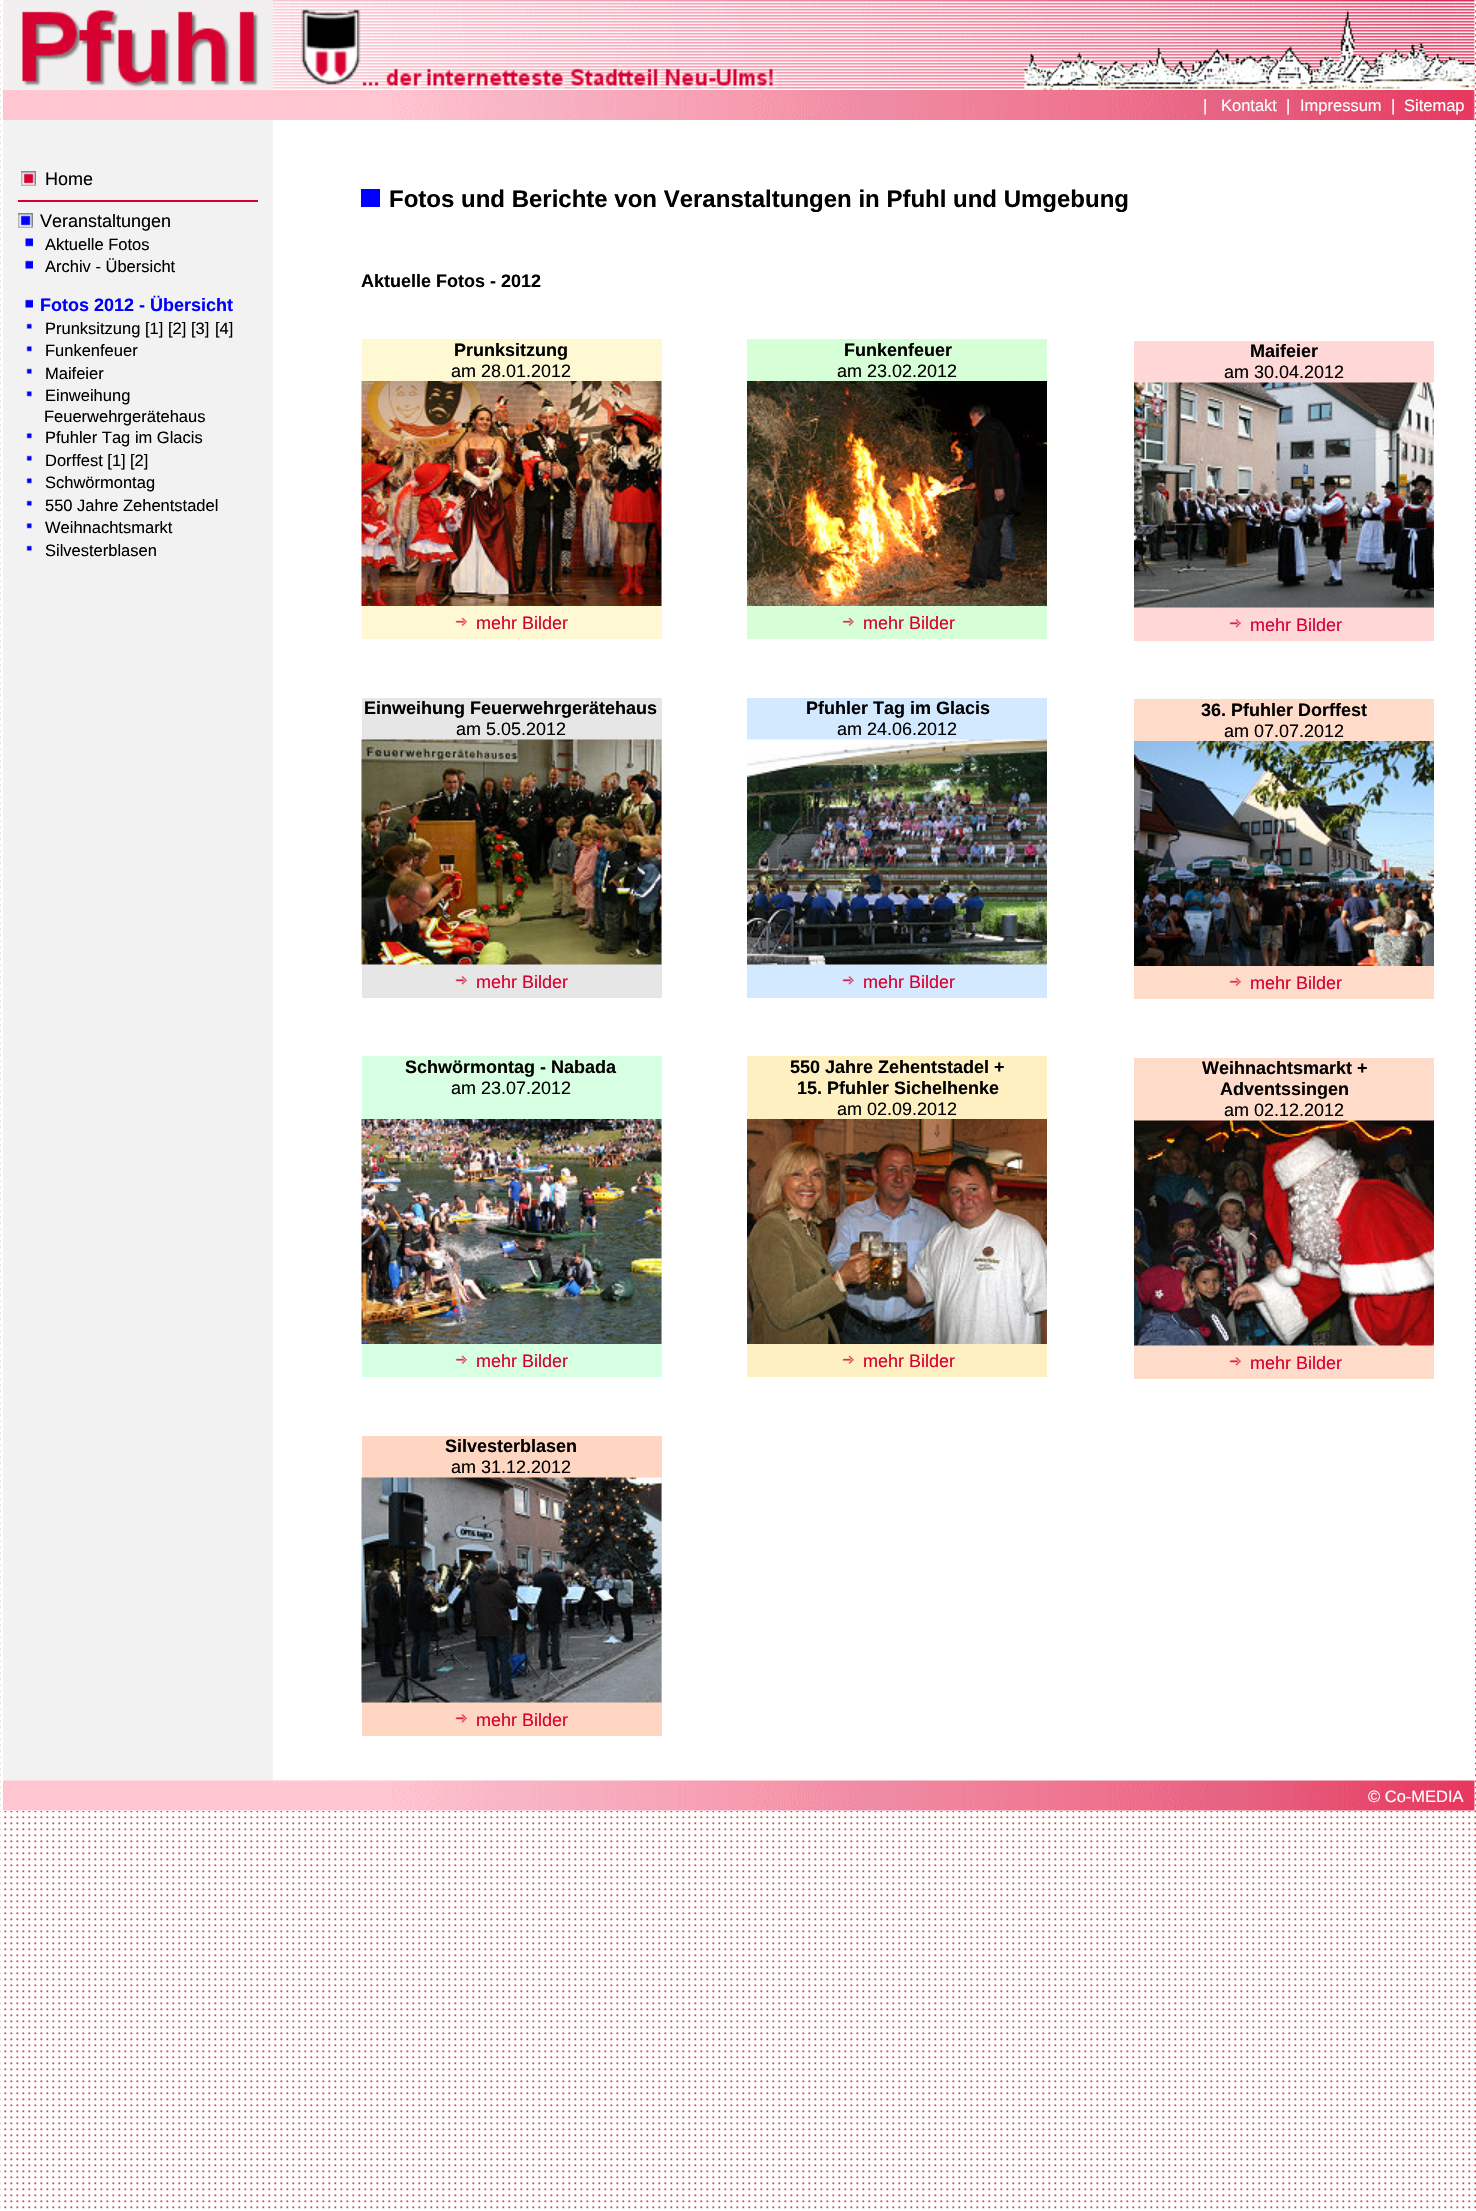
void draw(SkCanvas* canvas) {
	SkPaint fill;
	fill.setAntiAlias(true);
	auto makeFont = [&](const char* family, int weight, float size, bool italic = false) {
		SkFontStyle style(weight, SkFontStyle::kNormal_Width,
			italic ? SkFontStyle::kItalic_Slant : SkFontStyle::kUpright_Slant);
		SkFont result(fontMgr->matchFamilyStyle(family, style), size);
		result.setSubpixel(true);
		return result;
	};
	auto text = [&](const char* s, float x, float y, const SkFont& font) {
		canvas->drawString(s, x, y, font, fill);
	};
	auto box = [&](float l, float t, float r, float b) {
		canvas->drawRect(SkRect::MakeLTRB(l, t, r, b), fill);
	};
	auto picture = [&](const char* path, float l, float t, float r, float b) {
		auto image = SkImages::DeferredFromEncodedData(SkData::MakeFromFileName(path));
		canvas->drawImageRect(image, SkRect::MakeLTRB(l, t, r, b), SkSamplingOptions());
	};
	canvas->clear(0xFFFFFFFF);
	picture("image0.png", 0, 0, 1476, 2209);
	fill.setColor(0xFFFFFFFF);
	box(4, 0, 1475, 1811);
	picture("image1.png", 3, 0, 273, 90);
	picture("image2.png", 273, 0, 1475, 90);
	picture("image3.png", 1024, 10, 1475, 90);
	picture("image4.png", 3, 90, 1475, 120);
	fill.setColor(0xFFF2F2F2);
	box(3, 120, 273, 1781);
	picture("image5.png", 21, 171, 36, 186);
	fill.setColor(0xFFD60031);
	box(18, 200, 258, 202);
	picture("image6.png", 18, 213, 33, 228);
	picture("image7.png", 25, 238, 33, 247);
	picture("image8.png", 25, 260, 33, 269);
	picture("image8.png", 25, 299, 33, 308);
	picture("image9.png", 26, 323, 32, 329);
	picture("image10.png", 26, 346, 32, 352);
	picture("image9.png", 26, 368, 32, 374);
	picture("image10.png", 26, 391, 32, 397);
	picture("image10.png", 26, 433, 32, 439);
	picture("image9.png", 26, 455, 32, 461);
	picture("image10.png", 26, 478, 32, 484);
	picture("image9.png", 26, 500, 32, 506);
	picture("image10.png", 26, 523, 32, 529);
	picture("image9.png", 26, 545, 32, 551);
	fill.setColor(0xFF0000FF);
	box(361, 189, 380, 207);
	fill.setColor(0xFFFEF8D3);
	box(362, 339, 662, 639);
	picture("image11.png", 361, 381, 662, 606);
	picture("image12.png", 455, 617, 467, 626);
	fill.setColor(0xFFD7FFD7);
	box(747, 339, 1047, 639);
	picture("image13.png", 747, 381, 1047, 606);
	picture("image14.png", 842, 617, 854, 626);
	fill.setColor(0xFFFFD7D7);
	box(1134, 341, 1434, 641);
	picture("image15.png", 1134, 382, 1434, 608);
	picture("image16.png", 1229, 619, 1241, 628);
	fill.setColor(0xFFE6E6E6);
	box(362, 698, 662, 998);
	picture("image17.png", 361, 739, 662, 965);
	picture("image18.png", 455, 976, 467, 985);
	fill.setColor(0xFFD2E9FF);
	box(747, 698, 1047, 998);
	picture("image19.png", 747, 739, 1047, 965);
	picture("image20.png", 842, 976, 854, 985);
	fill.setColor(0xFFFFDBCA);
	box(1134, 699, 1434, 999);
	picture("image21.png", 1134, 741, 1434, 966);
	picture("image22.png", 1229, 977, 1241, 986);
	fill.setColor(0xFFD7FFE1);
	box(362, 1056, 662, 1377);
	picture("image23.png", 361, 1119, 662, 1344);
	picture("image24.png", 455, 1355, 467, 1364);
	fill.setColor(0xFFFFF0C1);
	box(747, 1056, 1047, 1377);
	picture("image25.png", 747, 1119, 1047, 1344);
	picture("image26.png", 842, 1355, 854, 1364);
	fill.setColor(0xFFFFDBCA);
	box(1134, 1058, 1434, 1379);
	picture("image27.png", 1134, 1120, 1434, 1346);
	picture("image28.png", 1229, 1357, 1241, 1366);
	fill.setColor(0xFFFFD6C1);
	box(362, 1436, 662, 1736);
	picture("image29.png", 361, 1477, 662, 1703);
	picture("image30.png", 455, 1714, 467, 1723);
	picture("image31.png", 3, 1780, 1475, 1811);
	auto font1 = makeFont("Liberation Sans", 400, 16.5f);
	fill.setColor(0xFFFFFFFF);
	text("|", 1203, 111, font1);
	text("Kontakt", 1221, 111, font1);
	text("|", 1286, 111, font1);
	text("Impressum", 1300, 111, font1);
	text("|", 1391, 111, font1);
	text("Sitemap", 1404, 111, font1);
	auto font2 = makeFont("Liberation Sans", 400, 18);
	fill.setColor(0xFF000000);
	text("Home", 45, 185, font2);
	text("Veranstaltungen", 40, 227, font2);
	text("Aktuelle Fotos", 45, 250, font1);
	text("Archiv - Übersicht", 45, 272, font1);
	auto font3 = makeFont("Liberation Sans", 700, 18);
	fill.setColor(0xFF0000FF);
	text("Fotos 2012 - Übersicht", 40, 311, font3);
	fill.setColor(0xFF000000);
	text("Prunksitzung [1]", 45, 334, font1);
	text("[2]", 168, 334, font1);
	text("[3]", 191, 334, font1);
	text("[4]", 215, 334, font1);
	text("Funkenfeuer", 45, 356, font1);
	text("Maifeier", 45, 379, font1);
	text("Einweihung", 45, 401, font1);
	text("Feuerwehrgerätehaus", 44, 422, font1);
	text("Pfuhler Tag im Glacis", 45, 443, font1);
	text("Dorffest [1]", 45, 466, font1);
	text("[2]", 130, 466, font1);
	text("Schwörmontag", 45, 488, font1);
	text("550 Jahre Zehentstadel", 45, 511, font1);
	text("Weihnachtsmarkt", 45, 533, font1);
	text("Silvesterblasen", 45, 556, font1);
	auto font4 = makeFont("Liberation Sans", 700, 24);
	text("Fotos und Berichte von Veranstaltungen in Pfuhl und Umgebung", 389, 207, font4);
	text("Aktuelle Fotos - 2012", 361, 287, font3);
	text("Prunksitzung", 454, 356, font3);
	text("am 28.01.2012", 451, 377, font2);
	fill.setColor(0xFFD60031);
	text("mehr Bilder", 476, 629, font2);
	fill.setColor(0xFF000000);
	text("Funkenfeuer", 844, 356, font3);
	text("am 23.02.2012", 837, 377, font2);
	fill.setColor(0xFFD60031);
	text("mehr Bilder", 863, 629, font2);
	fill.setColor(0xFF000000);
	text("Maifeier", 1250, 357, font3);
	text("am 30.04.2012", 1224, 378, font2);
	fill.setColor(0xFFD60031);
	text("mehr Bilder", 1250, 631, font2);
	fill.setColor(0xFF000000);
	text("Einweihung Feuerwehrgerätehaus", 364, 714, font3);
	text("am 5.05.2012", 456, 735, font2);
	fill.setColor(0xFFD60031);
	text("mehr Bilder", 476, 988, font2);
	fill.setColor(0xFF000000);
	text("Pfuhler Tag im Glacis", 806, 714, font3);
	text("am 24.06.2012", 837, 735, font2);
	fill.setColor(0xFFD60031);
	text("mehr Bilder", 863, 988, font2);
	fill.setColor(0xFF000000);
	text("36. Pfuhler Dorffest", 1201, 716, font3);
	text("am 07.07.2012", 1224, 737, font2);
	fill.setColor(0xFFD60031);
	text("mehr Bilder", 1250, 989, font2);
	fill.setColor(0xFF000000);
	text("Schwörmontag - Nabada", 405, 1073, font3);
	text("am 23.07.2012", 451, 1094, font2);
	fill.setColor(0xFFD60031);
	text("mehr Bilder", 476, 1367, font2);
	fill.setColor(0xFF000000);
	text("550 Jahre Zehentstadel +", 790, 1073, font3);
	text("15. Pfuhler Sichelhenke", 797, 1094, font3);
	text("am 02.09.2012", 837, 1115, font2);
	fill.setColor(0xFFD60031);
	text("mehr Bilder", 863, 1367, font2);
	fill.setColor(0xFF000000);
	text("Weihnachtsmarkt +", 1202, 1074, font3);
	text("Adventssingen", 1220, 1095, font3);
	text("am 02.12.2012", 1224, 1116, font2);
	fill.setColor(0xFFD60031);
	text("mehr Bilder", 1250, 1369, font2);
	fill.setColor(0xFF000000);
	text("Silvesterblasen", 445, 1452, font3);
	text("am 31.12.2012", 451, 1473, font2);
	fill.setColor(0xFFD60031);
	text("mehr Bilder", 476, 1726, font2);
	fill.setColor(0xFFFFFFFF);
	text("© Co-MEDIA", 1368, 1802, font1);
}
